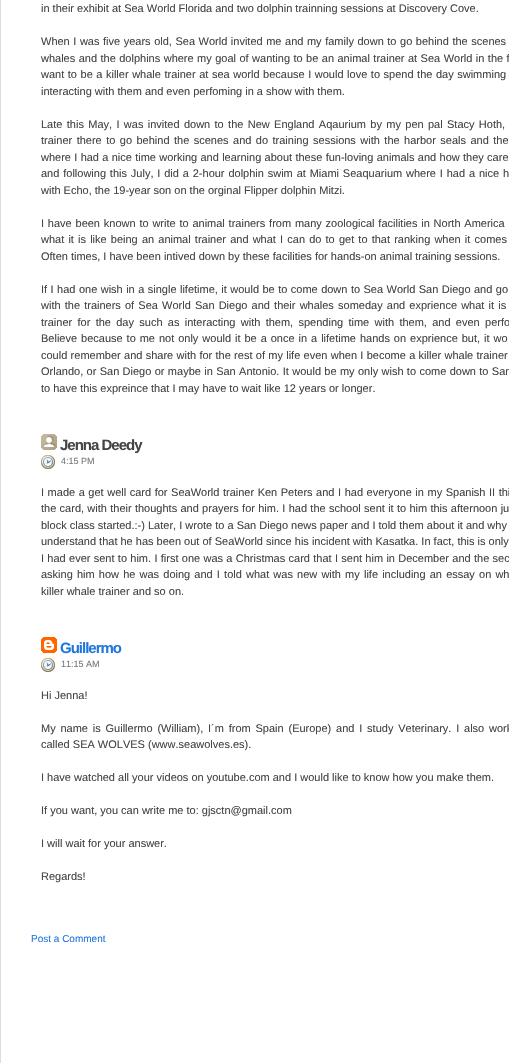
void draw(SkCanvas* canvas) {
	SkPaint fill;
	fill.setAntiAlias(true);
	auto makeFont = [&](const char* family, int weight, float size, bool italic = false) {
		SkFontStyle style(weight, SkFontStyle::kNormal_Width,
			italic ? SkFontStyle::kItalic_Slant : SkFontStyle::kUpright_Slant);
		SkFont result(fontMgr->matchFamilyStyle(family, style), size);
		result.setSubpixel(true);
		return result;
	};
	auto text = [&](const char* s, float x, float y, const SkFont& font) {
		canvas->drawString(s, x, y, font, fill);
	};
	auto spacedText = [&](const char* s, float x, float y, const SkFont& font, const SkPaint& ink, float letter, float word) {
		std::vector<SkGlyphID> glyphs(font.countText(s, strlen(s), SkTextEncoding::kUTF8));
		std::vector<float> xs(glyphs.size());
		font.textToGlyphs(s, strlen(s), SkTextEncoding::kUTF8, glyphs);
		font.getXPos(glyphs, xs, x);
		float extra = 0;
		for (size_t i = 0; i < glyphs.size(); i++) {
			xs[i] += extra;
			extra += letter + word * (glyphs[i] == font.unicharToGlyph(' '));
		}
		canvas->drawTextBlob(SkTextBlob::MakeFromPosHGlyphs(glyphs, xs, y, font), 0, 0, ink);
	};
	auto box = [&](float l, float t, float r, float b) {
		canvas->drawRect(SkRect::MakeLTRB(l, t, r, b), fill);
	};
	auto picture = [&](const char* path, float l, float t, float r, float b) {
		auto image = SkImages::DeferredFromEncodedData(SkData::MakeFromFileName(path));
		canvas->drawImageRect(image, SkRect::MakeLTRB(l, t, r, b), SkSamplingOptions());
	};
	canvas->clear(0xFFFFFFFF);
	fill.setColor(0xFFDDDDDD);
	box(0, 0, 1, 1063);
	picture("image0.png", 41, 434, 57, 450);
	picture("image1.png", 41, 455, 55, 469);
	picture("image2.png", 41, 637, 57, 653);
	picture("image1.png", 41, 658, 55, 672);
	auto font1 = makeFont("Liberation Sans", 400, 11);
	fill.setColor(0xFF444444);
	text("in their exhibit at Sea World Florida and two dolphin trainning sessions at Discovery Cove.", 41, 12, font1);
	spacedText("When I was five years old, Sea World invited me and my family down to go behind the scenes", 41, 45, font1, fill, 0, 0.5f);
	spacedText("whales and the dolphins where my goal of wanting to be an animal trainer at Sea World in the f", 41, 62, font1, fill, 0, 0.4f);
	spacedText("want to be a killer whale trainer at sea world because I would love to spend the day swimming", 41, 78, font1, fill, 0, 0.5f);
	text("interacting with them and even perfoming in a show with them.", 41, 95, font1);
	spacedText("Late this May, I was invited down to the New England Aqaurium by my pen pal Stacy Hoth,", 41, 128, font1, fill, 0, 1.3f);
	spacedText("trainer there to go behind the scenes and do training sessions with the harbor seals and the", 41, 144, font1, fill, 0, 1.4f);
	spacedText("where I had a nice time working and learning about these fun-loving animals and how they care", 41, 161, font1, fill, 0, 0.25f);
	spacedText("and following this July, I did a 2-hour dolphin swim at Miami Seaquarium where I had a nice h", 41, 177, font1, fill, 0, 0.8f);
	text("with Echo, the 19-year son on the orginal Flipper dolphin Mitzi.", 41, 194, font1);
	spacedText("I have been known to write to animal trainers from many zoological facilities in North America", 41, 227, font1, fill, 0, 0.75f);
	spacedText("what it is like being an animal trainer and what I can do to get to that ranking when it comes", 41, 243, font1, fill, 0, 1.1f);
	text("Often times, I have been intived down by these facilities for hands-on animal training sessions.", 41, 260, font1);
	spacedText("If I had one wish in a single lifetime, it would be to come down to Sea World San Diego and go", 41, 293, font1, fill, 0, 0.4f);
	spacedText("with the trainers of Sea World San Diego and their whales someday and exprience what it is", 41, 309, font1, fill, 0, 1.1f);
	spacedText("trainer for the day such as interacting with them, spending time with them, and even perfo", 41, 326, font1, fill, 0, 2.25f);
	spacedText("Believe because to me not only would it be a once in a lifetime hands on exprience but, it wo", 41, 342, font1, fill, 0, 0.9f);
	spacedText("could remember and share with for the rest of my life even when I become a killer whale trainer", 41, 359, font1, fill, 0, 0.25f);
	spacedText("Orlando, or San Diego or maybe in San Antonio. It would be my only wish to come down to San", 41, 375, font1, fill, 0, 0.3f);
	text("to have this expreince that I may have to wait like 12 years or longer.", 41, 392, font1);
	auto font2 = makeFont("Liberation Sans", 700, 15);
	spacedText("Jenna Deedy", 60, 450, font2, fill, -1, 0);
	auto font3 = makeFont("Liberation Sans", 400, 9);
	fill.setColor(0xFF777777);
	text("4:15 PM", 61, 464, font3);
	fill.setColor(0xFF444444);
	spacedText("I made a get well card for SeaWorld trainer Ken Peters and I had everyone in my Spanish II thi", 41, 496, font1, fill, 0, 0.5f);
	spacedText("the card, with their thoughts and prayers for him. I had the school sent it to him this afternoon ju", 41, 512, font1, fill, 0, 0.25f);
	text("block class started.:-) Later, I wrote to a San Diego news paper and I told them about it and why", 41, 529, font1);
	text("understand that he has been out of SeaWorld since his incident with Kasatka. In fact, this is only", 41, 545, font1);
	spacedText("I had ever sent to him. I first one was a Christmas card that I sent him in December and the sec", 41, 562, font1, fill, 0, 0.25f);
	spacedText("asking him how he was doing and I told what was new with my life including an essay on wh", 41, 578, font1, fill, 0, 1.1f);
	text("killer whale trainer and so on.", 41, 595, font1);
	fill.setColor(0xFF2277DD);
	spacedText("Guillermo", 60, 653, font2, fill, -1, 0);
	fill.setColor(0xFF777777);
	text("11:15 AM", 61, 667, font3);
	fill.setColor(0xFF444444);
	text("Hi Jenna!", 41, 699, font1);
	spacedText("My name is Guillermo (William), I´m from Spain (Europe) and I study Veterinary. I also work", 41, 732, font1, fill, 0, 1.75f);
	text("called SEA WOLVES (www.seawolves.es).", 41, 748, font1);
	text("I have watched all your videos on youtube.com and I would like to know how you make them.", 41, 781, font1);
	text("If you want, you can write me to: gjsctn@gmail.com", 41, 814, font1);
	text("I will wait for your answer.", 41, 847, font1);
	text("Regards!", 41, 880, font1);
	auto font4 = makeFont("Liberation Sans", 400, 10);
	fill.setColor(0xFF2277DD);
	text("Post a Comment", 31, 942, font4);
}
